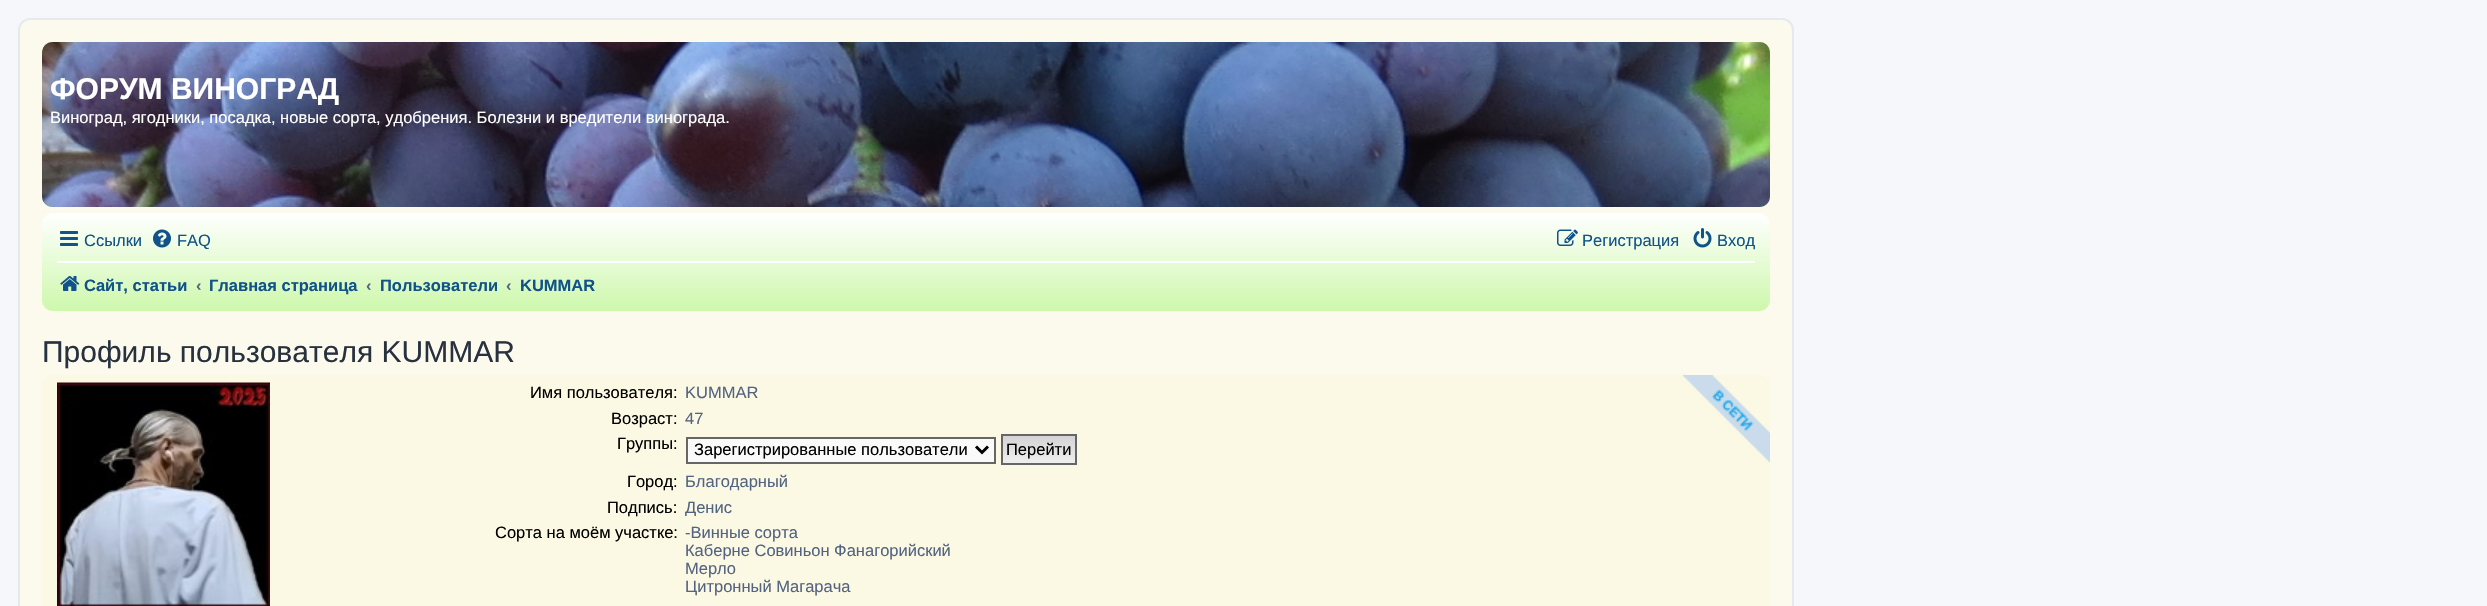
void draw(SkCanvas* canvas) {
	SkPaint fill;
	fill.setAntiAlias(true);
	auto makeFont = [&](const char* family, int weight, float size, bool italic = false) {
		SkFontStyle style(weight, SkFontStyle::kNormal_Width,
			italic ? SkFontStyle::kItalic_Slant : SkFontStyle::kUpright_Slant);
		SkFont result(fontMgr->matchFamilyStyle(family, style), size);
		result.setSubpixel(true);
		return result;
	};
	auto text = [&](const char* s, float x, float y, const SkFont& font) {
		canvas->drawString(s, x, y, font, fill);
	};
	auto box = [&](float l, float t, float r, float b) {
		canvas->drawRect(SkRect::MakeLTRB(l, t, r, b), fill);
	};
	auto roundBox = [&](float l, float t, float r, float b, float radius) {
		canvas->drawRoundRect(SkRect::MakeLTRB(l, t, r, b), radius, radius, fill);
	};
	auto picture = [&](const char* path, float l, float t, float r, float b) {
		auto image = SkImages::DeferredFromEncodedData(SkData::MakeFromFileName(path));
		canvas->drawImageRect(image, SkRect::MakeLTRB(l, t, r, b), SkSamplingOptions());
	};
	canvas->clear(0xFFF5F7FA);
	fill.setColor(0xFFFCFAED);
	canvas->drawRoundRect(SkRect::MakeLTRB(19, 19, 1793, 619), 11, 11, fill);
	fill.setStyle(SkPaint::kStroke_Style);
	fill.setStrokeWidth(2);
	fill.setColor(0xFFE6E9ED);
	canvas->drawRoundRect(SkRect::MakeLTRB(19, 19, 1793, 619), 11, 11, fill);
	fill.setStyle(SkPaint::kFill_Style);
	fill.setColor(0xFF6EBF5E);
	roundBox(42, 42, 1770, 207, 11);
	picture("image0.png", 42, 42, 1770, 207);
	{
		const SkColor colors[] = {0xFFFFFFFF, 0xFFCEF8AC};
		const float stops[] = {0, 1};
		const SkPoint ends[] = {{906, 213}, {906, 311}};
		fill.setShader(SkGradientShader::MakeLinear(ends, colors, stops, 2, SkTileMode::kClamp));
		fill.setAlpha(255);
	}
	roundBox(42, 213, 1770, 311, 11);
	picture("image1.png", 60, 231, 78, 246);
	picture("image2.png", 153, 229, 171, 248);
	picture("image3.png", 1557, 229, 1578, 246);
	picture("image4.png", 1693, 228, 1712, 248);
	fill.setShader(nullptr);
	fill.setColor(0xFFFFFFFF);
	box(57, 261, 1755, 263);
	picture("image5.png", 60, 276, 80, 291);
	fill.setColor(0xFFFBF8E3);
	roundBox(42, 375, 1770, 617, 11);
	picture("image6.png", 1683, 375, 1770, 462);
	picture("image7.png", 57, 382, 270, 606);
	fill.setColor(0xFFFAFAFA);
	canvas->drawRect(SkRect::MakeLTRB(687, 438, 995, 463), fill);
	fill.setStyle(SkPaint::kStroke_Style);
	fill.setColor(0xFF666666);
	canvas->drawRect(SkRect::MakeLTRB(687, 438, 995, 463), fill);
	fill.setStrokeWidth(3);
	fill.setColor(0xFF000000);
	canvas->drawPath(SkPathBuilder().moveTo(976, 446.5f).lineTo(982, 452.5f).lineTo(988, 446.5f).detach(), fill);
	fill.setStyle(SkPaint::kFill_Style);
	{
		const SkColor colors[] = {0xFFD2D2D2, 0xFFEFEFEF};
		const float stops[] = {0, 1};
		const SkPoint ends[] = {{1039, 435}, {1039, 464}};
		fill.setShader(SkGradientShader::MakeLinear(ends, colors, stops, 2, SkTileMode::kClamp));
		fill.setAlpha(255);
	}
	box(1003, 436, 1075, 463);
	fill.setStyle(SkPaint::kStroke_Style);
	fill.setStrokeWidth(2);
	fill.setShader(nullptr);
	fill.setColor(0xFF666666);
	canvas->drawRect(SkRect::MakeLTRB(1002, 435, 1076, 464), fill);
	auto font1 = makeFont("Liberation Sans", 700, 30);
	fill.setStyle(SkPaint::kFill_Style);
	fill.setColor(0xFFFFFFFF);
	text("ФОРУМ ВИНОГРАД", 50, 99, font1);
	auto font2 = makeFont("Liberation Sans", 400, 16.5f);
	text("Виноград, ягодники, посадка, новые сорта, удобрения. Болезни и вредители винограда.", 50, 123, font2);
	fill.setColor(0xFF105289);
	text("Ссылки", 84, 246, font2);
	text("FAQ", 177, 246, font2);
	text("Регистрация", 1582, 246, font2);
	text("Вход", 1717, 246, font2);
	auto font3 = makeFont("Liberation Sans", 700, 16.5f);
	text("Сайт, статьи", 84, 291, font3);
	fill.setColor(0xFF536482);
	text("‹", 196, 291, font3);
	fill.setColor(0xFF105289);
	text("Главная страница", 209, 291, font3);
	fill.setColor(0xFF536482);
	text("‹", 366, 291, font3);
	fill.setColor(0xFF105289);
	text("Пользователи", 380, 291, font3);
	fill.setColor(0xFF536482);
	text("‹", 506, 291, font3);
	canvas->save();
	canvas->clipRect(SkRect::MakeLTRB(521, 267, 596, 303));
	fill.setColor(0xFF105289);
	text("KUMMAR", 520, 291, font3);
	canvas->restore();
	auto font4 = makeFont("Liberation Sans", 400, 30);
	fill.setColor(0xFF28313F);
	text("Профиль пользователя KUMMAR", 42, 362, font4);
	fill.setColor(0xFF000000);
	text("Имя пользователя:", 530, 398, font2);
	fill.setColor(0xFF536482);
	text("KUMMAR", 685, 398, font2);
	fill.setColor(0xFF000000);
	text("Возраст:", 611, 424, font2);
	fill.setColor(0xFF536482);
	text("47", 685, 424, font2);
	fill.setColor(0xFF000000);
	text("Группы:", 617, 449, font2);
	text("Зарегистрированные пользователи", 694, 455, font2);
	text("Перейти", 1006, 455, font2);
	text("Город:", 627, 487, font2);
	fill.setColor(0xFF536482);
	text("Благодарный", 685, 487, font2);
	fill.setColor(0xFF000000);
	text("Подпись:", 607, 513, font2);
	canvas->save();
	canvas->clipRect(SkRect::MakeLTRB(678, 498, 1568, 516));
	fill.setColor(0xFF536482);
	text("Денис", 685, 513, font2);
	canvas->restore();
	fill.setColor(0xFF000000);
	text("Сорта на моём участке:", 495, 538, font2);
	fill.setColor(0xFF536482);
	text("-Винные сорта", 685, 538, font2);
	text("Каберне Совиньон Фанагорийский", 685, 556, font2);
	text("Мерло", 685, 574, font2);
	text("Цитронный Магарача", 685, 592, font2);
}
